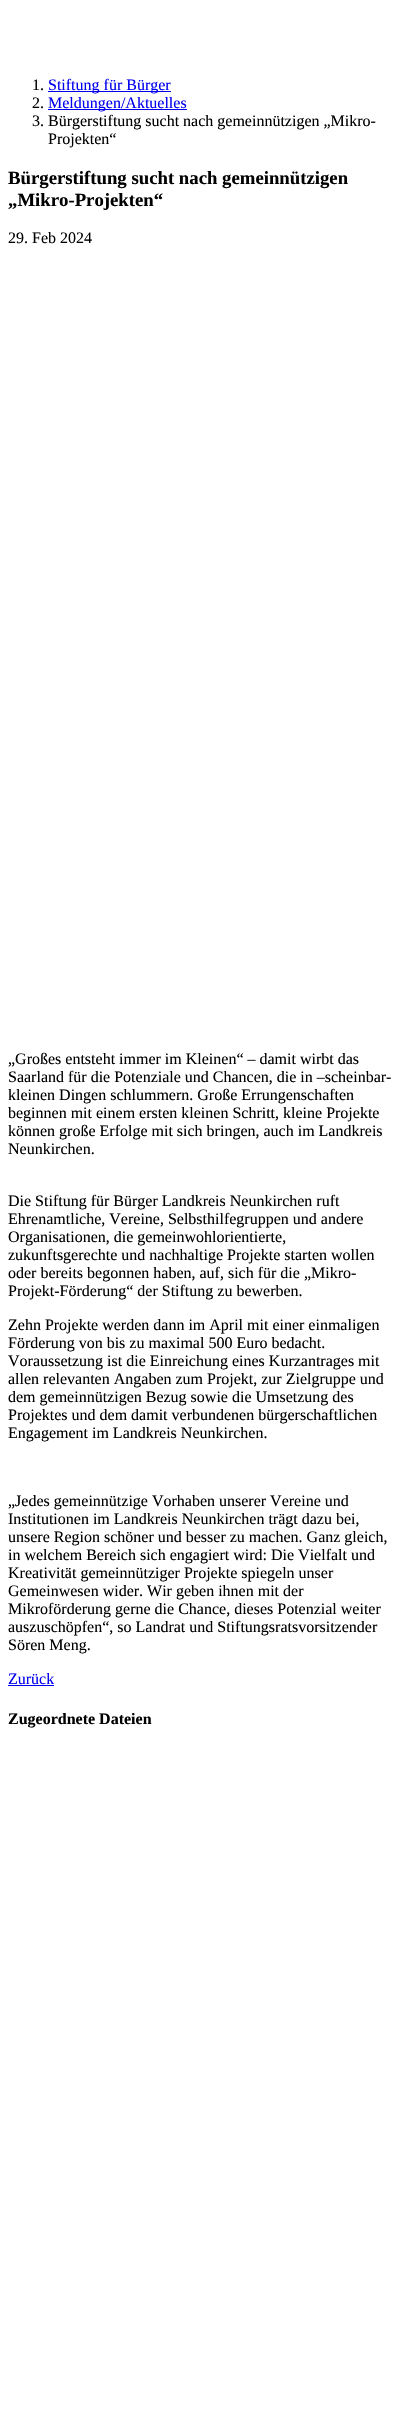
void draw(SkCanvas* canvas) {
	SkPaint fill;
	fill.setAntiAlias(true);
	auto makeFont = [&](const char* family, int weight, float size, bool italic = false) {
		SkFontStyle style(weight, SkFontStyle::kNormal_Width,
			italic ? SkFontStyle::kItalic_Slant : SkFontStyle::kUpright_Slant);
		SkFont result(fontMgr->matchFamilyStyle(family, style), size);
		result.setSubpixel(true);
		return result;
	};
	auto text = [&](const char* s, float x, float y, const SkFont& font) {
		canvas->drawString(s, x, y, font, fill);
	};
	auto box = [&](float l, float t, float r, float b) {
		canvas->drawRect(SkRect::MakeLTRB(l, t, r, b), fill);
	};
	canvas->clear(0xFFFFFFFF);
	fill.setColor(0xFF0000EE);
	box(48, 91, 171, 92);
	box(48, 109, 187, 110);
	box(8, 1685, 54, 1686);
	auto font1 = makeFont("Liberation Serif", 400, 16);
	fill.setColor(0xFF000000);
	text("1.", 32, 90, font1);
	fill.setColor(0xFF0000EE);
	text("Stiftung für Bürger", 48, 90, font1);
	fill.setColor(0xFF000000);
	text("2.", 32, 108, font1);
	fill.setColor(0xFF0000EE);
	text("Meldungen/Aktuelles", 48, 108, font1);
	fill.setColor(0xFF000000);
	text("3. Bürgerstiftung sucht nach gemeinnützigen „Mikro-", 32, 126, font1);
	text("Projekten“", 48, 144, font1);
	auto font2 = makeFont("Liberation Serif", 700, 18.75f);
	text("Bürgerstiftung sucht nach gemeinnützigen", 8, 184, font2);
	text("„Mikro-Projekten“", 8, 206, font2);
	text("29. Feb 2024", 8, 243, font1);
	text("„Großes entsteht immer im Kleinen“ – damit wirbt das", 8, 1064, font1);
	text("Saarland für die Potenziale und Chancen, die in –scheinbar-", 8, 1082, font1);
	text("kleinen Dingen schlummern. Große Errungenschaften", 8, 1100, font1);
	text("beginnen mit einem ersten kleinen Schritt, kleine Projekte", 8, 1118, font1);
	text("können große Erfolge mit sich bringen, auch im Landkreis", 8, 1136, font1);
	text("Neunkirchen.", 8, 1154, font1);
	text("Die Stiftung für Bürger Landkreis Neunkirchen ruft", 8, 1206, font1);
	text("Ehrenamtliche, Vereine, Selbsthilfegruppen und andere", 8, 1224, font1);
	text("Organisationen, die gemeinwohlorientierte,", 8, 1242, font1);
	text("zukunftsgerechte und nachhaltige Projekte starten wollen", 8, 1260, font1);
	text("oder bereits begonnen haben, auf, sich für die „Mikro-", 8, 1278, font1);
	text("Projekt-Förderung“ der Stiftung zu bewerben.", 8, 1296, font1);
	text("Zehn Projekte werden dann im April mit einer einmaligen", 8, 1330, font1);
	text("Förderung von bis zu maximal 500 Euro bedacht.", 8, 1348, font1);
	text("Voraussetzung ist die Einreichung eines Kurzantrages mit", 8, 1366, font1);
	text("allen relevanten Angaben zum Projekt, zur Zielgruppe und", 8, 1384, font1);
	text("dem gemeinnützigen Bezug sowie die Umsetzung des", 8, 1402, font1);
	text("Projektes und dem damit verbundenen bürgerschaftlichen", 8, 1420, font1);
	text("Engagement im Landkreis Neunkirchen.", 8, 1438, font1);
	text("„Jedes gemeinnützige Vorhaben unserer Vereine und", 8, 1506, font1);
	text("Institutionen im Landkreis Neunkirchen trägt dazu bei,", 8, 1524, font1);
	text("unsere Region schöner und besser zu machen. Ganz gleich,", 8, 1542, font1);
	text("in welchem Bereich sich engagiert wird: Die Vielfalt und", 8, 1560, font1);
	text("Kreativität gemeinnütziger Projekte spiegeln unser", 8, 1578, font1);
	text("Gemeinwesen wider. Wir geben ihnen mit der", 8, 1596, font1);
	text("Mikroförderung gerne die Chance, dieses Potenzial weiter", 8, 1614, font1);
	text("auszuschöpfen“, so Landrat und Stiftungsratsvorsitzender", 8, 1632, font1);
	text("Sören Meng.", 8, 1650, font1);
	fill.setColor(0xFF0000EE);
	text("Zurück", 8, 1684, font1);
	auto font3 = makeFont("Liberation Serif", 700, 16);
	fill.setColor(0xFF000000);
	text("Zugeordnete Dateien", 8, 1724, font3);
}
